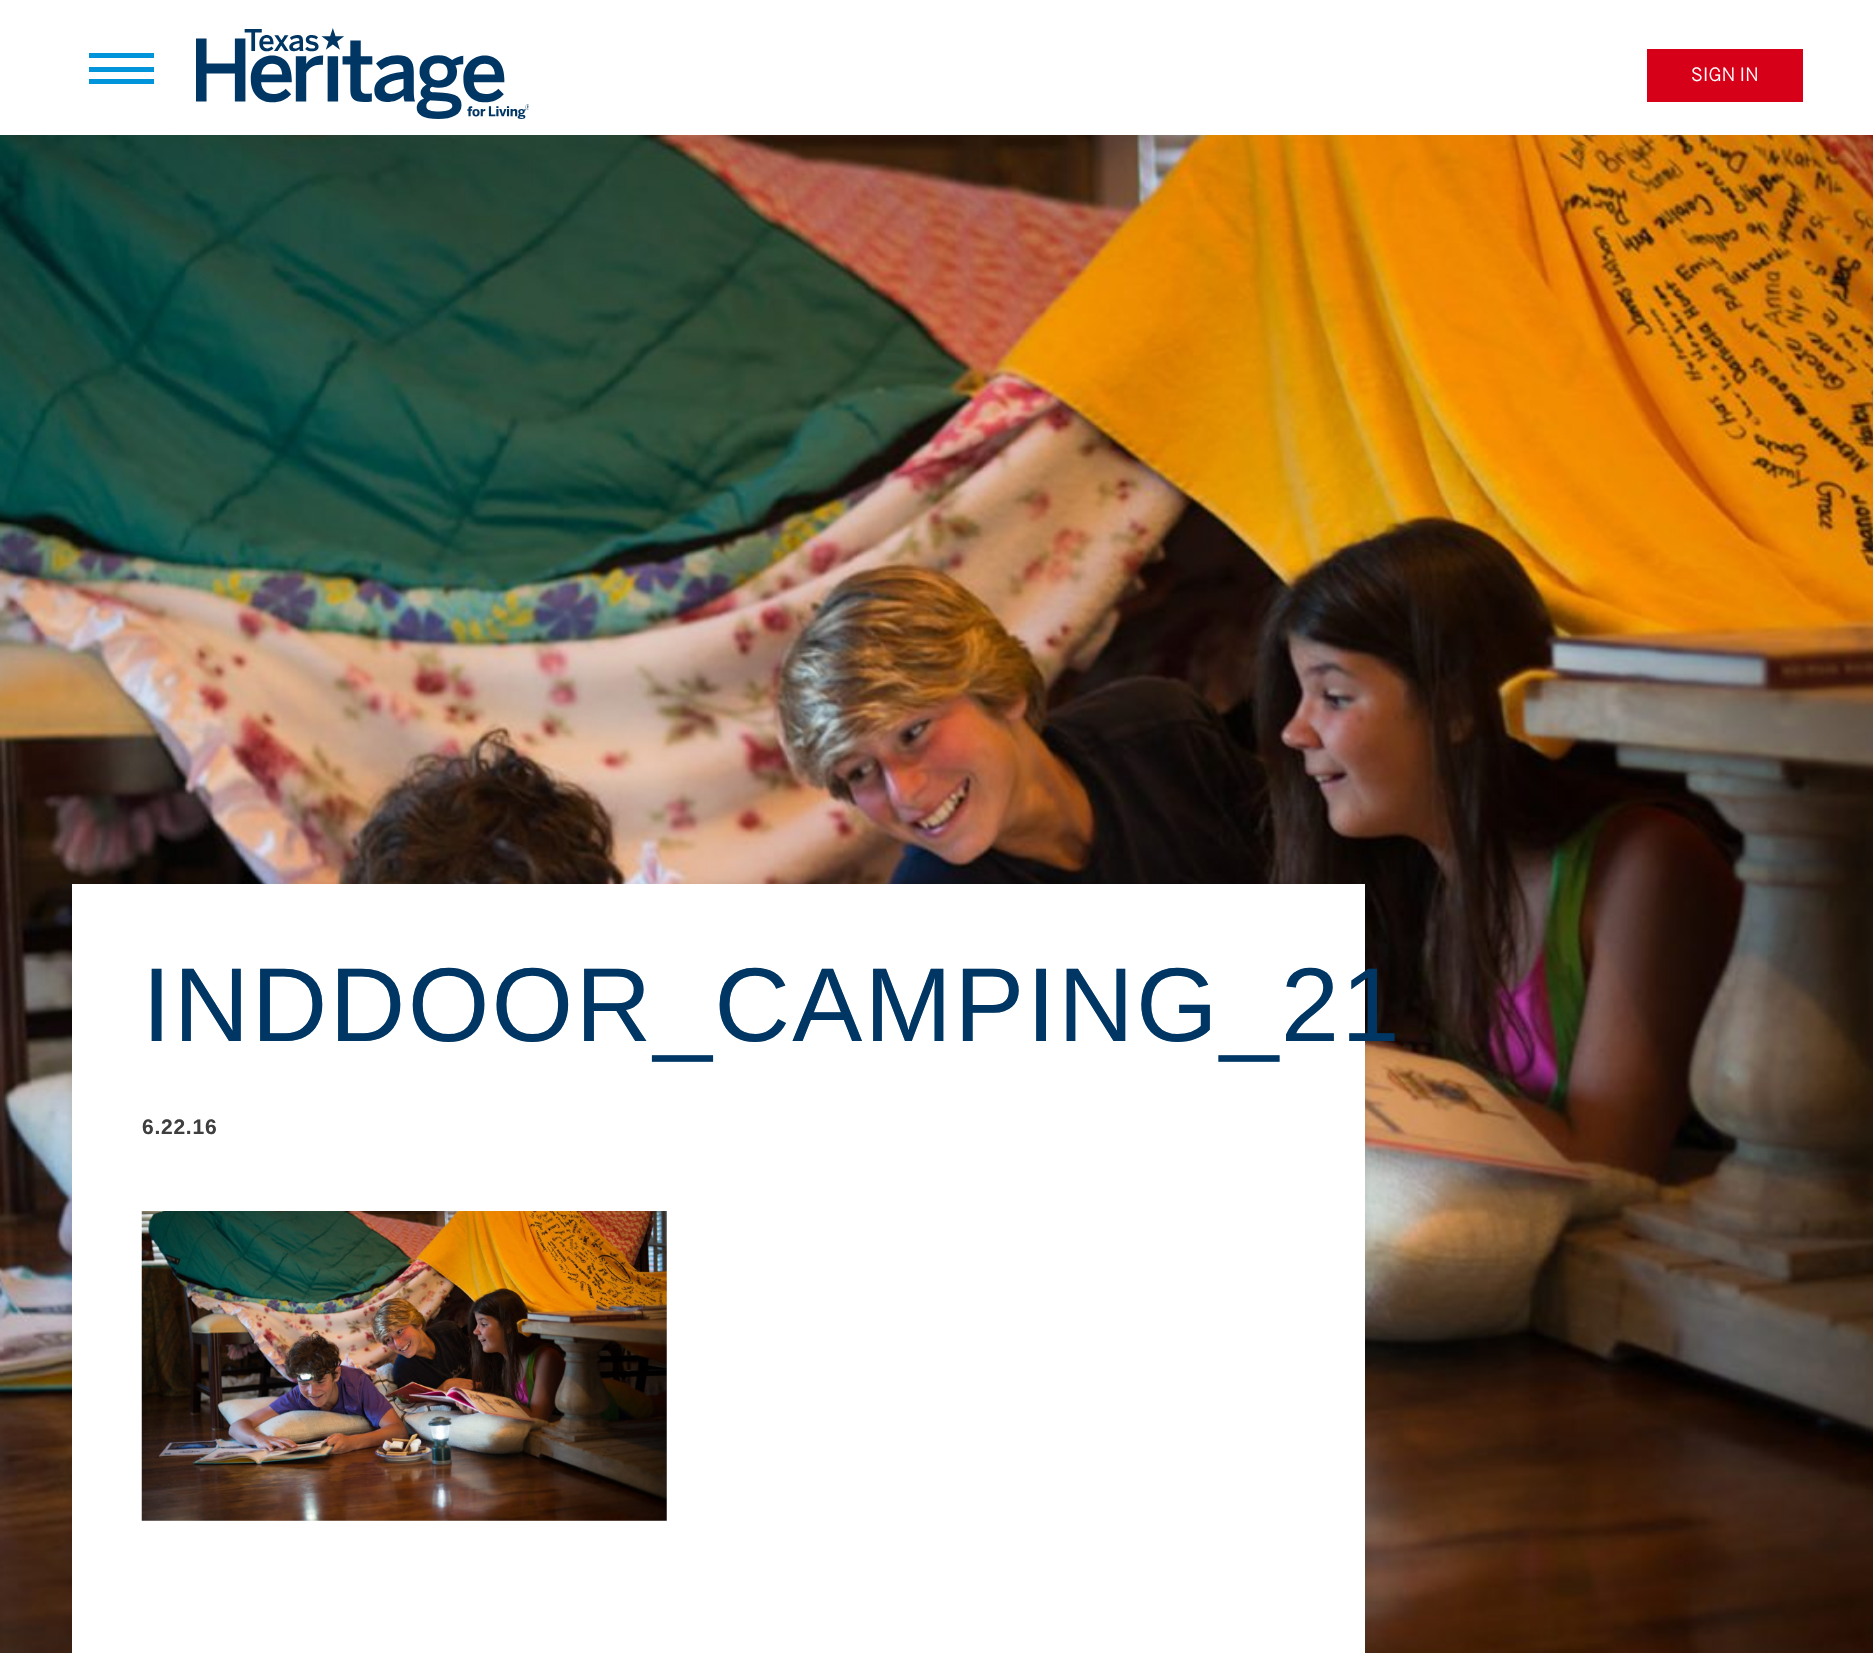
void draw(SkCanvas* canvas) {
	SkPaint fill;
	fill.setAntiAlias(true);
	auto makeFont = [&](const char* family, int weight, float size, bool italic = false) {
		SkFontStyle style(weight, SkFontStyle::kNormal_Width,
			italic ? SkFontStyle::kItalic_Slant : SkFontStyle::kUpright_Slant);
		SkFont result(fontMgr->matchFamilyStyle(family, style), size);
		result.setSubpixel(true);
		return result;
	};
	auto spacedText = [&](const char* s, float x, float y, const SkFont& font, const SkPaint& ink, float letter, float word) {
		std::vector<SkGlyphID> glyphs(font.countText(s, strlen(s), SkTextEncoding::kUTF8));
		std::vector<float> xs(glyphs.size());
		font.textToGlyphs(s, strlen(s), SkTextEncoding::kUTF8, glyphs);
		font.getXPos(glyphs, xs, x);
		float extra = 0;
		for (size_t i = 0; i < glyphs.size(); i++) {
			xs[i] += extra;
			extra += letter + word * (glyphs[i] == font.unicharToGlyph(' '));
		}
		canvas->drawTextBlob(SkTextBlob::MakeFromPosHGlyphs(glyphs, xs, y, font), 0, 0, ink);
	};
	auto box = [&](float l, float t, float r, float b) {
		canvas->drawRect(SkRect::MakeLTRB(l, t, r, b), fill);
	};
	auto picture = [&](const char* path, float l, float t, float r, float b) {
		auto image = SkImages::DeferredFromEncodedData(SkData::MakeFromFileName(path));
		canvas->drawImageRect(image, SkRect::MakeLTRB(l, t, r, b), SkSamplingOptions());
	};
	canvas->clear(0xFFFFFFFF);
	fill.setColor(0xFF0095DA);
	box(89, 53, 154, 58);
	box(89, 67, 154, 72);
	box(89, 79, 154, 84);
	picture("image0.png", 196, 28, 529, 119);
	fill.setColor(0xFFD70019);
	box(1647, 49, 1803, 102);
	picture("image1.png", 0, 135, 1873, 1653);
	fill.setColor(0x1A000000);
	fill.setMaskFilter(SkMaskFilter::MakeBlur(kNormal_SkBlurStyle, 5));
	canvas->drawRect(SkRect::MakeLTRB(72, 886, 1365, 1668), fill);
	fill.setMaskFilter(nullptr);
	fill.setColor(0xFFFFFFFF);
	box(72, 884, 1365, 1653);
	picture("image2.png", 141, 1211, 667, 1521);
	auto font1 = makeFont("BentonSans", 700, 17.5f);
	spacedText("SIGN IN", 1691, 81, font1, fill, 0.75f, 0);
	auto font2 = makeFont("Liberation Sans", 400, 105);
	fill.setColor(0xFF003663);
	spacedText("INDDOOR_CAMPING_21", 142, 1041, font2, fill, 2.25f, 0);
	auto font3 = makeFont("Liberation Sans", 700, 21);
	fill.setColor(0xFF3F3F3F);
	spacedText("6.22.16", 142, 1134, font3, fill, 0.75f, 0);
}
